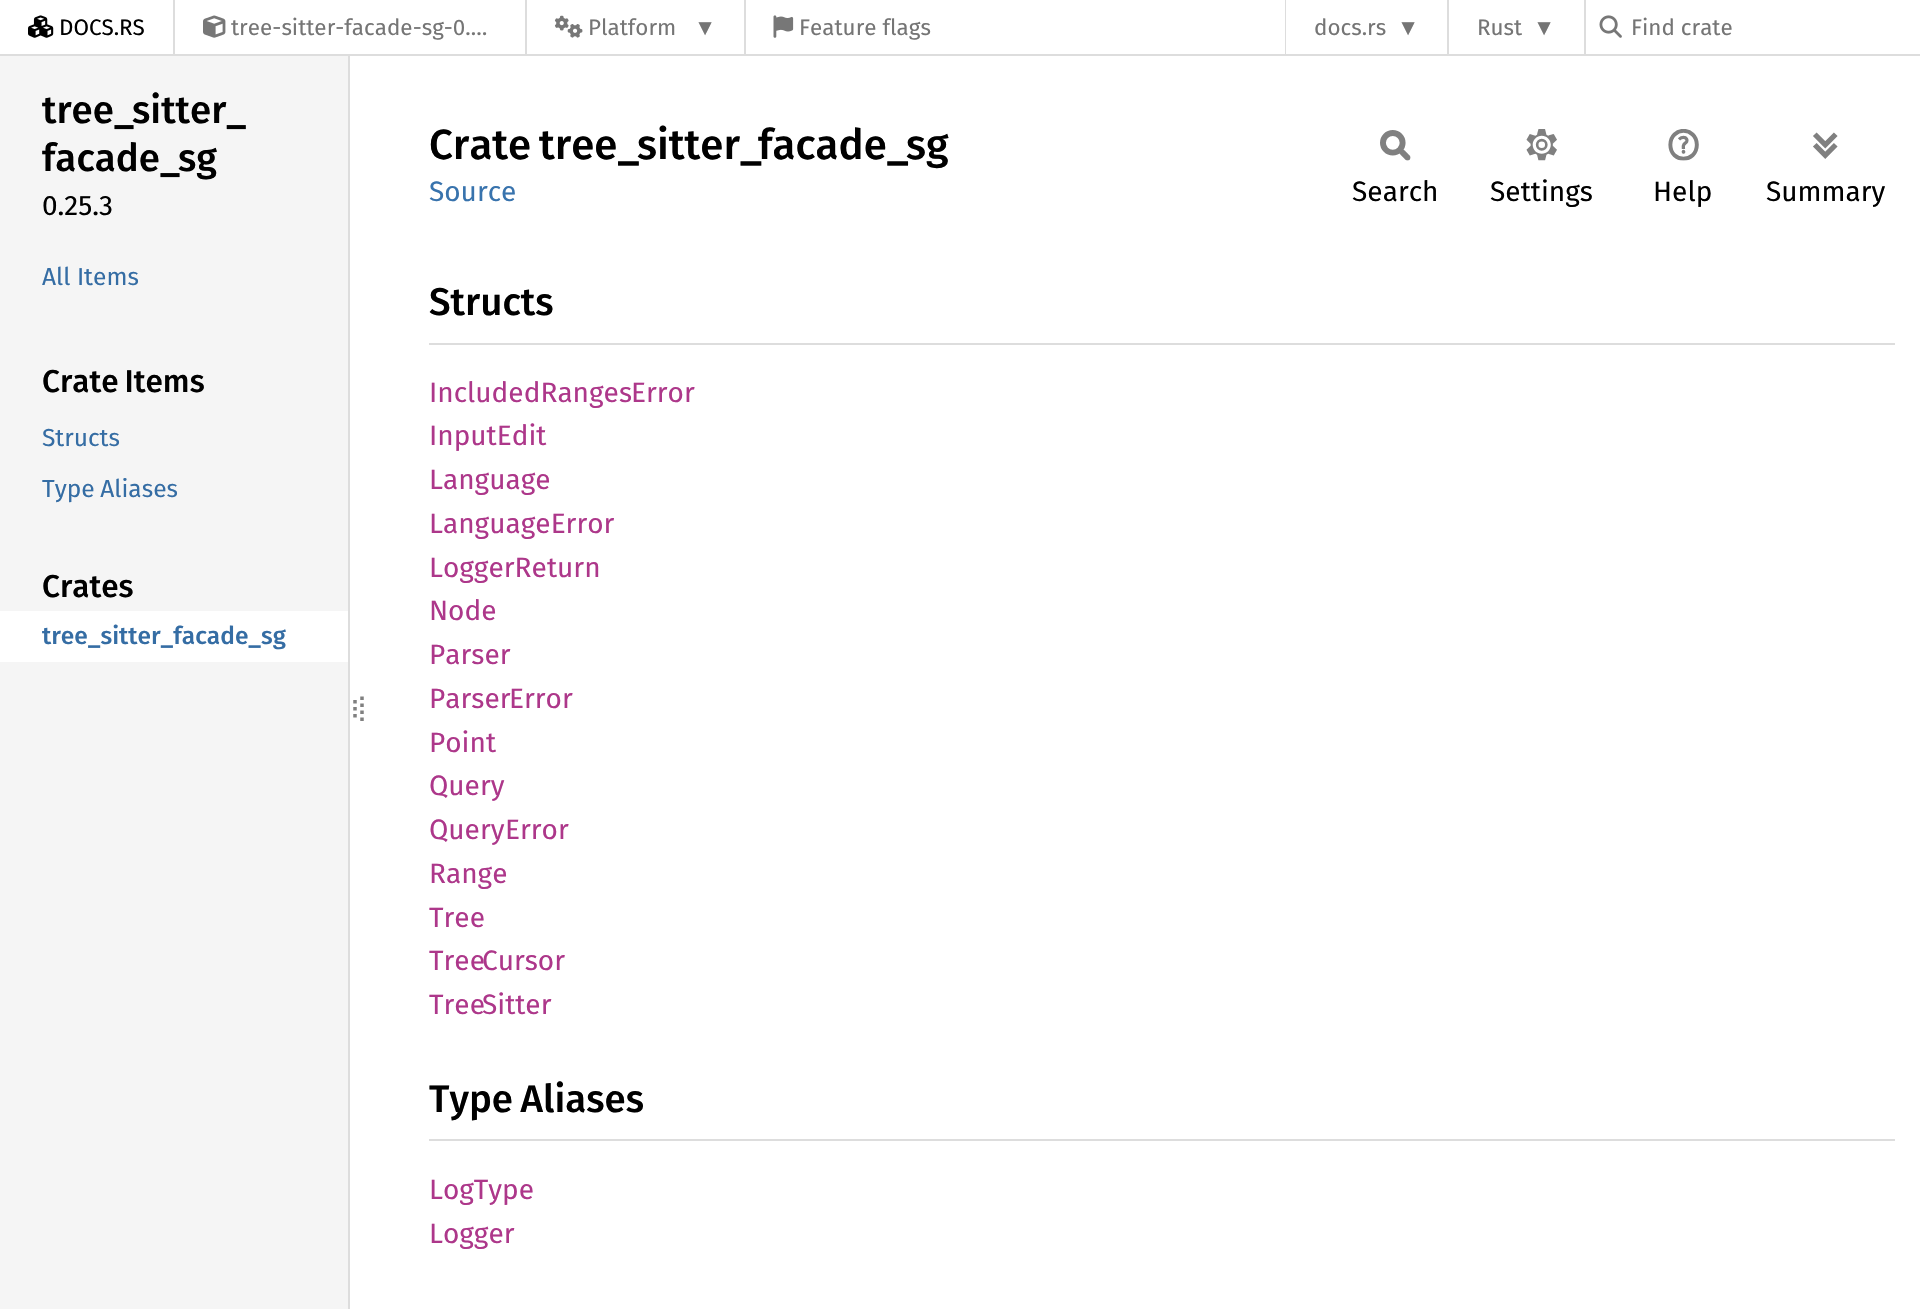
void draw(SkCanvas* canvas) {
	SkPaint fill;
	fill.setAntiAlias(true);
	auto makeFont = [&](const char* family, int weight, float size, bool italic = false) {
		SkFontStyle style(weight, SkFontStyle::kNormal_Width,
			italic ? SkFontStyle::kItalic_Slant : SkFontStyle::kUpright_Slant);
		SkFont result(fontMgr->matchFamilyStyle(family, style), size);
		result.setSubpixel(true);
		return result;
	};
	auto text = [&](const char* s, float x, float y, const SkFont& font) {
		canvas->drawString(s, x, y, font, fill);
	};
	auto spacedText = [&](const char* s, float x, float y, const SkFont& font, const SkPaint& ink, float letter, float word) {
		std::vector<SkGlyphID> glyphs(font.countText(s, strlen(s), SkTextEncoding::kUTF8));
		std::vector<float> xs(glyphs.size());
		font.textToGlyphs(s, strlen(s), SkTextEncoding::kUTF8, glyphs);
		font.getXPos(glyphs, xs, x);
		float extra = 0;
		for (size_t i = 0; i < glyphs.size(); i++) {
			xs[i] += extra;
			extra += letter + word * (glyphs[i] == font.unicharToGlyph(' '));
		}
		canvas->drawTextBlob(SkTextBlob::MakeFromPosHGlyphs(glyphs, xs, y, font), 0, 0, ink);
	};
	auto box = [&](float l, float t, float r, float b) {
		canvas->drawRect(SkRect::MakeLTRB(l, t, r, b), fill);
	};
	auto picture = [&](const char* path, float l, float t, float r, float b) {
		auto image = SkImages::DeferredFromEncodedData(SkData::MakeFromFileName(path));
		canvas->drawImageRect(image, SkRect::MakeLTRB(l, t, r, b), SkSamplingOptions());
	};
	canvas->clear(0xFFFFFFFF);
	fill.setColor(0xFFDDDDDD);
	box(0, 54, 1920, 56);
	picture("image0.png", 28, 15, 54, 38);
	box(173, 0, 175, 54);
	picture("image1.png", 203, 15, 226, 38);
	box(525, 0, 527, 54);
	picture("image2.png", 554, 15, 583, 38);
	box(744, 0, 746, 54);
	picture("image3.png", 773, 15, 794, 38);
	box(1285, 0, 1286, 54);
	box(1447, 0, 1449, 54);
	box(1584, 0, 1586, 54);
	picture("image4.png", 1599, 15, 1622, 38);
	fill.setColor(0xFFF5F5F5);
	box(0, 56, 348, 1309);
	fill.setColor(0xFFDDDDDD);
	box(348, 56, 350, 1309);
	fill.setColor(0xFFFFFFFF);
	box(0, 611, 348, 662);
	fill.setStyle(SkPaint::kStroke_Style);
	fill.setStrokeWidth(3.5f);
	fill.setColor(0xFF808080);
	canvas->drawPath(SkPathBuilder().moveTo(355, 700).lineTo(355, 703.5f).moveTo(355, 707).lineTo(355, 710.5f).moveTo(355, 714).lineTo(355, 717.5f).detach(), fill);
	fill.setPathEffect(SkDashPathEffect::Make({{3.5f, 3.5f}}, 0));
	canvas->drawPath(SkPathBuilder().moveTo(362, 696.5f).lineTo(362, 724.5f).detach(), fill);
	fill.setPathEffect(nullptr);
	picture("image5.png", 1380, 130, 1411, 161);
	picture("image6.png", 1526, 129, 1557, 161);
	picture("image7.png", 1668, 129, 1699, 161);
	picture("image8.png", 1813, 132, 1838, 159);
	fill.setStyle(SkPaint::kFill_Style);
	fill.setColor(0xFFDDDDDD);
	box(429, 343, 1895, 345);
	box(429, 1139, 1895, 1141);
	auto font1 = makeFont("Fira Sans", 400, 22.4f);
	fill.setColor(0xFF000000);
	text("DOCS.RS", 59, 35, font1);
	fill.setColor(0xFF757575);
	text("tree-sitter-facade-sg-0.…", 231, 35, font1);
	text("Platform", 588, 35, font1);
	auto font2 = makeFont("Liberation Sans", 400, 22.4f);
	text("▼", 694, 35, font2);
	text("Feature flags", 799, 35, font1);
	text("docs.rs", 1314, 35, font1);
	text("▼", 1397, 35, font2);
	text("Rust", 1477, 35, font1);
	text("▼", 1533, 35, font2);
	text("Find crate", 1631, 35, font1);
	auto font3 = makeFont("Fira Sans", 500, 38.5f);
	fill.setColor(0xFF000000);
	text("tree_", 42, 123, font3);
	text("sitter_", 132, 123, font3);
	text("facade_", 42, 171, font3);
	text("sg", 178, 171, font3);
	auto font4 = makeFont("Fira Sans", 400, 28);
	text("0.25.3", 42, 215, font4);
	auto font5 = makeFont("Fira Sans", 400, 24.5f);
	fill.setColor(0xFF356DA4);
	text("All Items", 42, 285, font5);
	auto font6 = makeFont("Fira Sans", 500, 31.5f);
	fill.setColor(0xFF000000);
	spacedText("Crate Items", 42, 392, font6, fill, 0, -2);
	fill.setColor(0xFF356DA4);
	text("Structs", 42, 446, font5);
	spacedText("Type Aliases", 42, 497, font5, fill, 0, -1);
	fill.setColor(0xFF000000);
	text("Crates", 42, 597, font6);
	auto font7 = makeFont("Fira Sans", 500, 24.5f);
	fill.setColor(0xFF356DA4);
	text("tree_sitter_facade_sg", 42, 644, font7);
	auto font8 = makeFont("Fira Sans", 500, 42);
	fill.setColor(0xFF000000);
	text("Crate", 429, 159, font8);
	text("tree_", 539, 159, font8);
	text("sitter_", 637, 159, font8);
	text("facade_", 758, 159, font8);
	text("sg", 906, 159, font8);
	fill.setColor(0xFF3873AD);
	text("Source", 429, 201, font4);
	fill.setColor(0xFF000000);
	text("Search", 1352, 201, font4);
	text("Settings", 1490, 201, font4);
	text("Help", 1653, 201, font4);
	text("Summary", 1766, 201, font4);
	text("Structs", 429, 315, font3);
	fill.setColor(0xFFAD378A);
	text("IncludedRanges", 429, 402, font4);
	text("Error", 631, 402, font4);
	text("InputEdit", 429, 445, font4);
	text("Language", 429, 489, font4);
	text("LanguageError", 429, 533, font4);
	text("LoggerReturn", 429, 577, font4);
	text("Node", 429, 620, font4);
	text("Parser", 429, 664, font4);
	text("Parser", 429, 708, font4);
	text("Error", 509, 708, font4);
	text("Point", 429, 752, font4);
	text("Query", 429, 795, font4);
	text("Query", 429, 839, font4);
	text("Error", 505, 839, font4);
	text("Range", 429, 883, font4);
	text("Tree", 429, 927, font4);
	text("Tree", 429, 970, font4);
	text("Cursor", 482, 970, font4);
	text("Tree", 429, 1014, font4);
	text("Sitter", 482, 1014, font4);
	fill.setColor(0xFF000000);
	spacedText("Type Aliases", 429, 1112, font3, fill, 0, -2);
	fill.setColor(0xFFAD378A);
	text("LogType", 429, 1199, font4);
	text("Logger", 429, 1243, font4);
}
